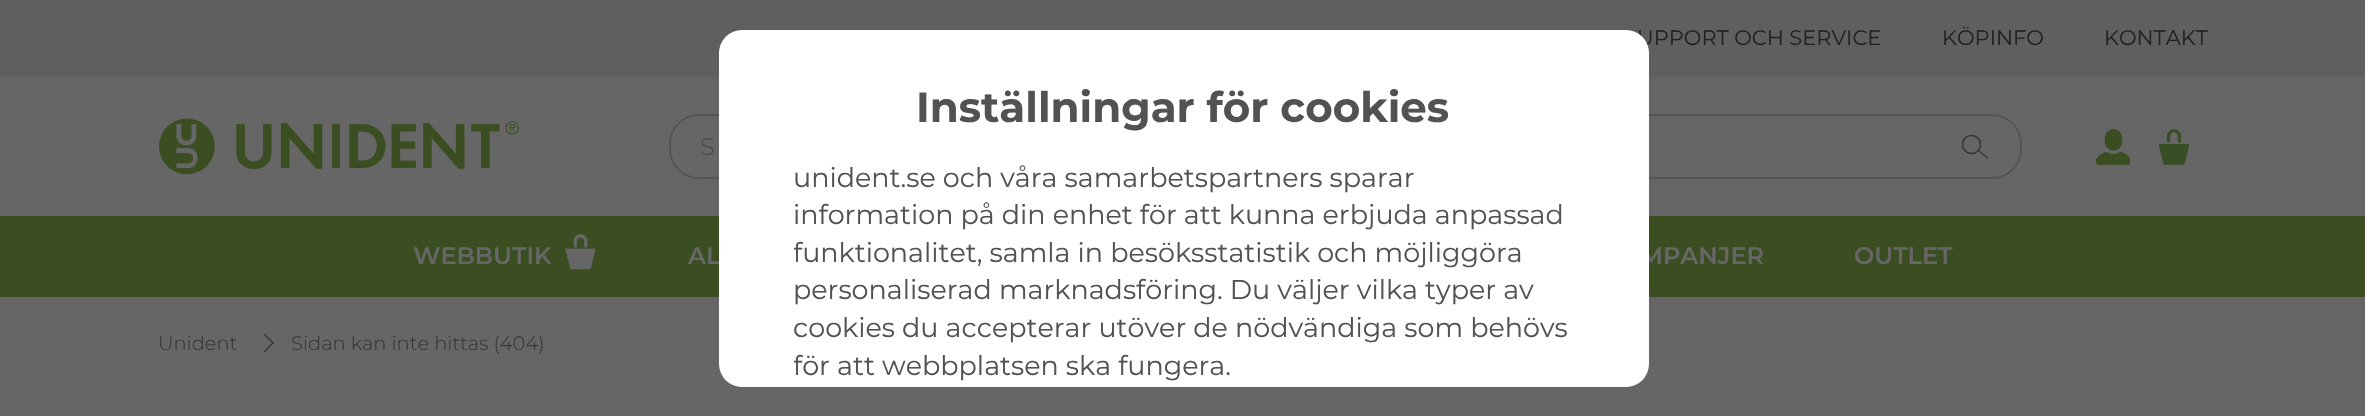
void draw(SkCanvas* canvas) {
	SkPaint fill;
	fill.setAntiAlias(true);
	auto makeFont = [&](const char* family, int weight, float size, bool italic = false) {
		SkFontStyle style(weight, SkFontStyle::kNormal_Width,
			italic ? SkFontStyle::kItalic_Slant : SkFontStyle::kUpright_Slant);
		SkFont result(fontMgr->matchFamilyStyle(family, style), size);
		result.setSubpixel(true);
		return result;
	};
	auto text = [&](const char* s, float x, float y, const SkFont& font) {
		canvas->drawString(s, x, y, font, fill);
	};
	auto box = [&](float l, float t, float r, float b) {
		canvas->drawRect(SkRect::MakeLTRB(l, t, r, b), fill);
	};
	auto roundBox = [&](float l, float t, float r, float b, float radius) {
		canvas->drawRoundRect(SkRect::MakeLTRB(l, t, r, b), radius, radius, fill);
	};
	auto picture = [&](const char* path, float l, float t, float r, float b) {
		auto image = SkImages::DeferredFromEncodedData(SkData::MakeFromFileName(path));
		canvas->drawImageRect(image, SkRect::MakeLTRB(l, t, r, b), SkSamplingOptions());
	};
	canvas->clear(0xFF666666);
	fill.setColor(0xFF5F5F5F);
	box(0, 0, 2365, 77);
	picture("image0.png", 159, 118, 519, 175);
	fill.setStyle(SkPaint::kStroke_Style);
	fill.setStrokeWidth(2);
	fill.setColor(0xFF555555);
	canvas->drawRoundRect(SkRect::MakeLTRB(670, 115, 2021, 178), 29, 29, fill);
	canvas->save();
	canvas->clipRect(SkRect::MakeLTRB(1962, 135, 1988, 159));
	fill.setStrokeWidth(1.5f);
	fill.setColor(0xFF363636);
	canvas->drawCircle(1971.5f, 144.5f, 9, fill);
	canvas->restore();
	canvas->drawPath(SkPathBuilder().moveTo(1978.5f, 150.5f).lineTo(1987.5f, 158).detach(), fill);
	picture("image1.png", 2096, 129, 2130, 165);
	picture("image2.png", 2159, 129, 2189, 165);
	fill.setStyle(SkPaint::kFill_Style);
	fill.setColor(0xFF3B4E22);
	box(0, 216, 2365, 297);
	picture("image3.png", 565, 234, 596, 270);
	fill.setColor(0xFF363636);
	canvas->drawPath(SkPathBuilder().moveTo(264.5f, 333.5f).lineTo(274, 343).lineTo(273, 344).lineTo(263.5f, 334.5f).close().detach(), fill);
	canvas->drawPath(SkPathBuilder().moveTo(273, 342).lineTo(274, 343).lineTo(264.5f, 352.5f).lineTo(263.5f, 351.5f).close().detach(), fill);
	auto font1 = makeFont("Montserrat", 400, 21);
	fill.setColor(0xFF212120);
	text("UPPORT OCH SERVICE", 1637, 45, font1);
	text("KÖPINFO", 1942, 45, font1);
	text("KONTAKT", 2104, 45, font1);
	auto font2 = makeFont("Montserrat", 300, 24);
	fill.setColor(0xFF474747);
	text("S", 700, 155, font2);
	auto font3 = makeFont("Montserrat", 600, 24);
	fill.setColor(0xFF666666);
	text("WEBBUTIK", 413, 264, font3);
	text("AL", 688, 264, font3);
	text("MPANJER", 1640, 264, font3);
	fill.setColor(0xFFFFFFFF);
	roundBox(719, 30, 1649, 387, 23);
	canvas->save();
	canvas->clipRect(SkRect::MakeLTRB(794, 134, 1574, 386));
	auto font4 = makeFont("Montserrat", 400, 27);
	fill.setColor(0xFF525251);
	text("för att webbplatsen ska fungera.", 793, 375, font4);
	canvas->restore();
	text("cookies du accepterar utöver de nödvändiga som behövs", 793, 337, font4);
	text("personaliserad marknadsföring. Du väljer vilka typer av", 793, 299, font4);
	canvas->save();
	canvas->clipRect(SkRect::MakeLTRB(794, 134, 1574, 386));
	text("funktionalitet, samla in besöksstatistik och möjliggöra", 793, 262, font4);
	canvas->restore();
	text("information på din enhet för att kunna erbjuda anpassad", 793, 224, font4);
	text("unident.se och våra samarbetspartners sparar", 793, 187, font4);
	auto font5 = makeFont("Montserrat", 700, 42);
	text("Inställningar för cookies", 916, 122, font5);
	fill.setColor(0xFF666666);
	text("OUTLET", 1854, 264, font3);
	auto font6 = makeFont("Montserrat", 300, 19.5f);
	fill.setColor(0xFF363636);
	text("Unident", 158, 350, font6);
	text("Sidan kan inte hittas (404)", 291, 350, font6);
}
